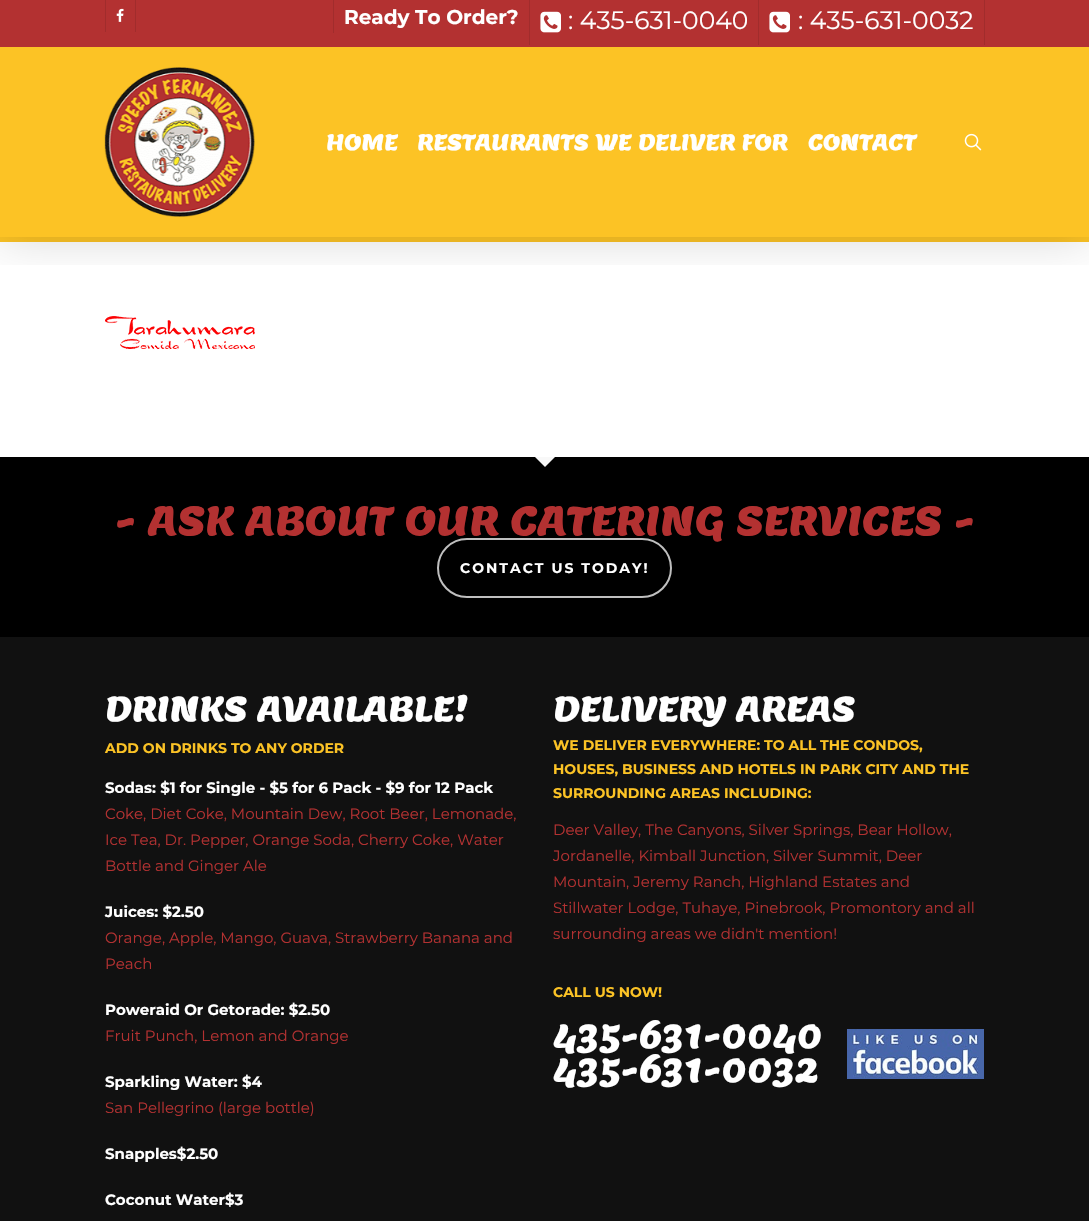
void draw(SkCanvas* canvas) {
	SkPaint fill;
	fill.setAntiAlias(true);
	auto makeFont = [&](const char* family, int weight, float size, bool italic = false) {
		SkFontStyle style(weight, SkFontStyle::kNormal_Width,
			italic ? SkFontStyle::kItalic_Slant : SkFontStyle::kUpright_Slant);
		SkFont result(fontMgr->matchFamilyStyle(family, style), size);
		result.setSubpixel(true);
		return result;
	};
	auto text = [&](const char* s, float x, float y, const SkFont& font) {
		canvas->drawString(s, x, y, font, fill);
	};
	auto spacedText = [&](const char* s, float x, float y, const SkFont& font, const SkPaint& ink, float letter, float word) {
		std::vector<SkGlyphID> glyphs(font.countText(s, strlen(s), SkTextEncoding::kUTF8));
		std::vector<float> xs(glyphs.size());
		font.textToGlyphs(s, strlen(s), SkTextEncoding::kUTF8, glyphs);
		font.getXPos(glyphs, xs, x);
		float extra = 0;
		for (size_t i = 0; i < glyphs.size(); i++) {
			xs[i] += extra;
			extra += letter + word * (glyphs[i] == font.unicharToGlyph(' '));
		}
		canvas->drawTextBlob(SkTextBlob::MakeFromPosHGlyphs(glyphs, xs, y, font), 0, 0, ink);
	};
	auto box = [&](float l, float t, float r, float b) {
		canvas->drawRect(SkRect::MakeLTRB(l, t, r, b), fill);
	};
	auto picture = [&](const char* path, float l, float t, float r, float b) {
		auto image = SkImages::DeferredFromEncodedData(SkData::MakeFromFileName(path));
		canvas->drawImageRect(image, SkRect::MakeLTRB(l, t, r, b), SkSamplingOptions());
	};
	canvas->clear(0xFFFFFFFF);
	fill.setColor(0xFFFCC325);
	box(0, 47, 1089, 242);
	canvas->save();
	canvas->clipRect(SkRect::MakeLTRB(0, 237, 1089, 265));
	fill.setColor(0x26000000);
	fill.setMaskFilter(SkMaskFilter::MakeBlur(kNormal_SkBlurStyle, 22.5f));
	canvas->drawRect(SkRect::MakeLTRB(0, 3, 1089, 240), fill);
	fill.setMaskFilter(nullptr);
	canvas->restore();
	fill.setColor(0xFFB33131);
	box(0, 0, 1089, 47);
	fill.setColor(0xFFA12C2C);
	box(135, 0, 136, 32);
	box(105, 0, 106, 32);
	picture("image0.png", 116, 8, 124, 22);
	box(333, 0, 334, 33);
	box(529, 0, 530, 45);
	picture("image1.png", 540, 11, 561, 33);
	box(984, 0, 985, 45);
	box(758, 0, 759, 45);
	picture("image1.png", 769, 11, 790, 33);
	picture("image2.png", 104, 67, 255, 217);
	picture("image3.png", 964, 133, 982, 151);
	picture("image4.png", 105, 316, 255, 350);
	fill.setColor(0xFF111111);
	box(0, 637, 1089, 1221);
	fill.setColor(0xFF000000);
	box(0, 457, 1089, 637);
	fill.setColor(0xFFF8F8F8);
	canvas->drawPath(SkPathBuilder().moveTo(535, 457).lineTo(555, 457).lineTo(545, 467).close().detach(), fill);
	picture("image5.png", 847, 1029, 984, 1079);
	auto font1 = makeFont("Montserrat", 700, 20);
	fill.setColor(0xFFFFFFFF);
	text("Ready To Order?", 344, 24, font1);
	auto font2 = makeFont("Montserrat", 400, 25);
	text(": 435-631-0040", 568, 29, font2);
	text(": 435-631-0032", 798, 29, font2);
	auto font3 = makeFont("Lemon", 400, 22);
	text("HOME", 326, 150, font3);
	text("RESTAURANTS WE DELIVER FOR", 417, 150, font3);
	text("CONTACT", 808, 150, font3);
	auto font4 = makeFont("Lemon", 400, 40);
	fill.setColor(0xFFB33131);
	text("- ASK ABOUT OUR CATERING SERVICES -", 115, 535, font4);
	fill.setStyle(SkPaint::kStroke_Style);
	fill.setStrokeWidth(2);
	fill.setColor(0xFFBFBFBF);
	canvas->drawRoundRect(SkRect::MakeLTRB(438, 539, 671, 597), 29, 29, fill);
	auto font5 = makeFont("Montserrat", 700, 14);
	fill.setStyle(SkPaint::kFill_Style);
	fill.setColor(0xFFFFFFFF);
	spacedText("CONTACT US TODAY!", 460, 573, font5, fill, 2, 0);
	auto font6 = makeFont("Lemon", 400, 34);
	text("DRINKS AVAILABLE!", 105, 721, font6);
	fill.setColor(0xFFFCC325);
	text("ADD ON DRINKS TO ANY ORDER", 105, 753, font5);
	auto font7 = makeFont("Montserrat", 700, 15);
	fill.setColor(0xFFFFFFFF);
	text("Sodas: $1 for Single - $5 for 6 Pack - $9 for 12 Pack", 105, 793, font7);
	auto font8 = makeFont("Montserrat", 400, 15);
	fill.setColor(0xFFB33131);
	text("Coke, Diet Coke, Mountain Dew, Root Beer, Lemonade,", 105, 819, font8);
	text("Ice Tea, Dr. Pepper, Orange Soda, Cherry Coke, Water", 105, 845, font8);
	text("Bottle and Ginger Ale", 105, 871, font8);
	fill.setColor(0xFFFFFFFF);
	text("Juices: $2.50", 105, 917, font7);
	fill.setColor(0xFFB33131);
	text("Orange, Apple, Mango, Guava, Strawberry Banana and", 105, 943, font8);
	text("Peach", 105, 969, font8);
	fill.setColor(0xFFFFFFFF);
	text("Poweraid Or Getorade: $2.50", 105, 1015, font7);
	fill.setColor(0xFFB33131);
	text("Fruit Punch, Lemon and Orange", 105, 1041, font8);
	fill.setColor(0xFFFFFFFF);
	text("Sparkling Water: $4", 105, 1087, font7);
	fill.setColor(0xFFB33131);
	text("San Pellegrino (large bottle)", 105, 1113, font8);
	fill.setColor(0xFFFFFFFF);
	text("Snapples$2.50", 105, 1159, font7);
	text("Coconut Water$3", 105, 1205, font7);
	text("DELIVERY AREAS", 553, 721, font6);
	fill.setColor(0xFFFCC325);
	text("WE DELIVER EVERYWHERE: TO ALL THE CONDOS,", 553, 750, font5);
	text("HOUSES, BUSINESS AND HOTELS IN PARK CITY AND THE", 553, 774, font5);
	text("SURROUNDING AREAS INCLUDING:", 553, 798, font5);
	fill.setColor(0xFFB33131);
	text("Deer Valley, The Canyons, Silver Springs, Bear Hollow,", 553, 835, font8);
	text("Jordanelle, Kimball Junction, Silver Summit, Deer", 553, 861, font8);
	text("Mountain, Jeremy Ranch, Highland Estates and", 553, 887, font8);
	text("Stillwater Lodge, Tuhaye, Pinebrook, Promontory and all", 553, 913, font8);
	text("surrounding areas we didn't mention!", 553, 939, font8);
	fill.setColor(0xFFFCC325);
	text("CALL US NOW!", 553, 997, font5);
	fill.setColor(0xFFFFFFFF);
	text("435-631-0040", 553, 1048, font6);
	text("435-631-0032", 553, 1082, font6);
}
